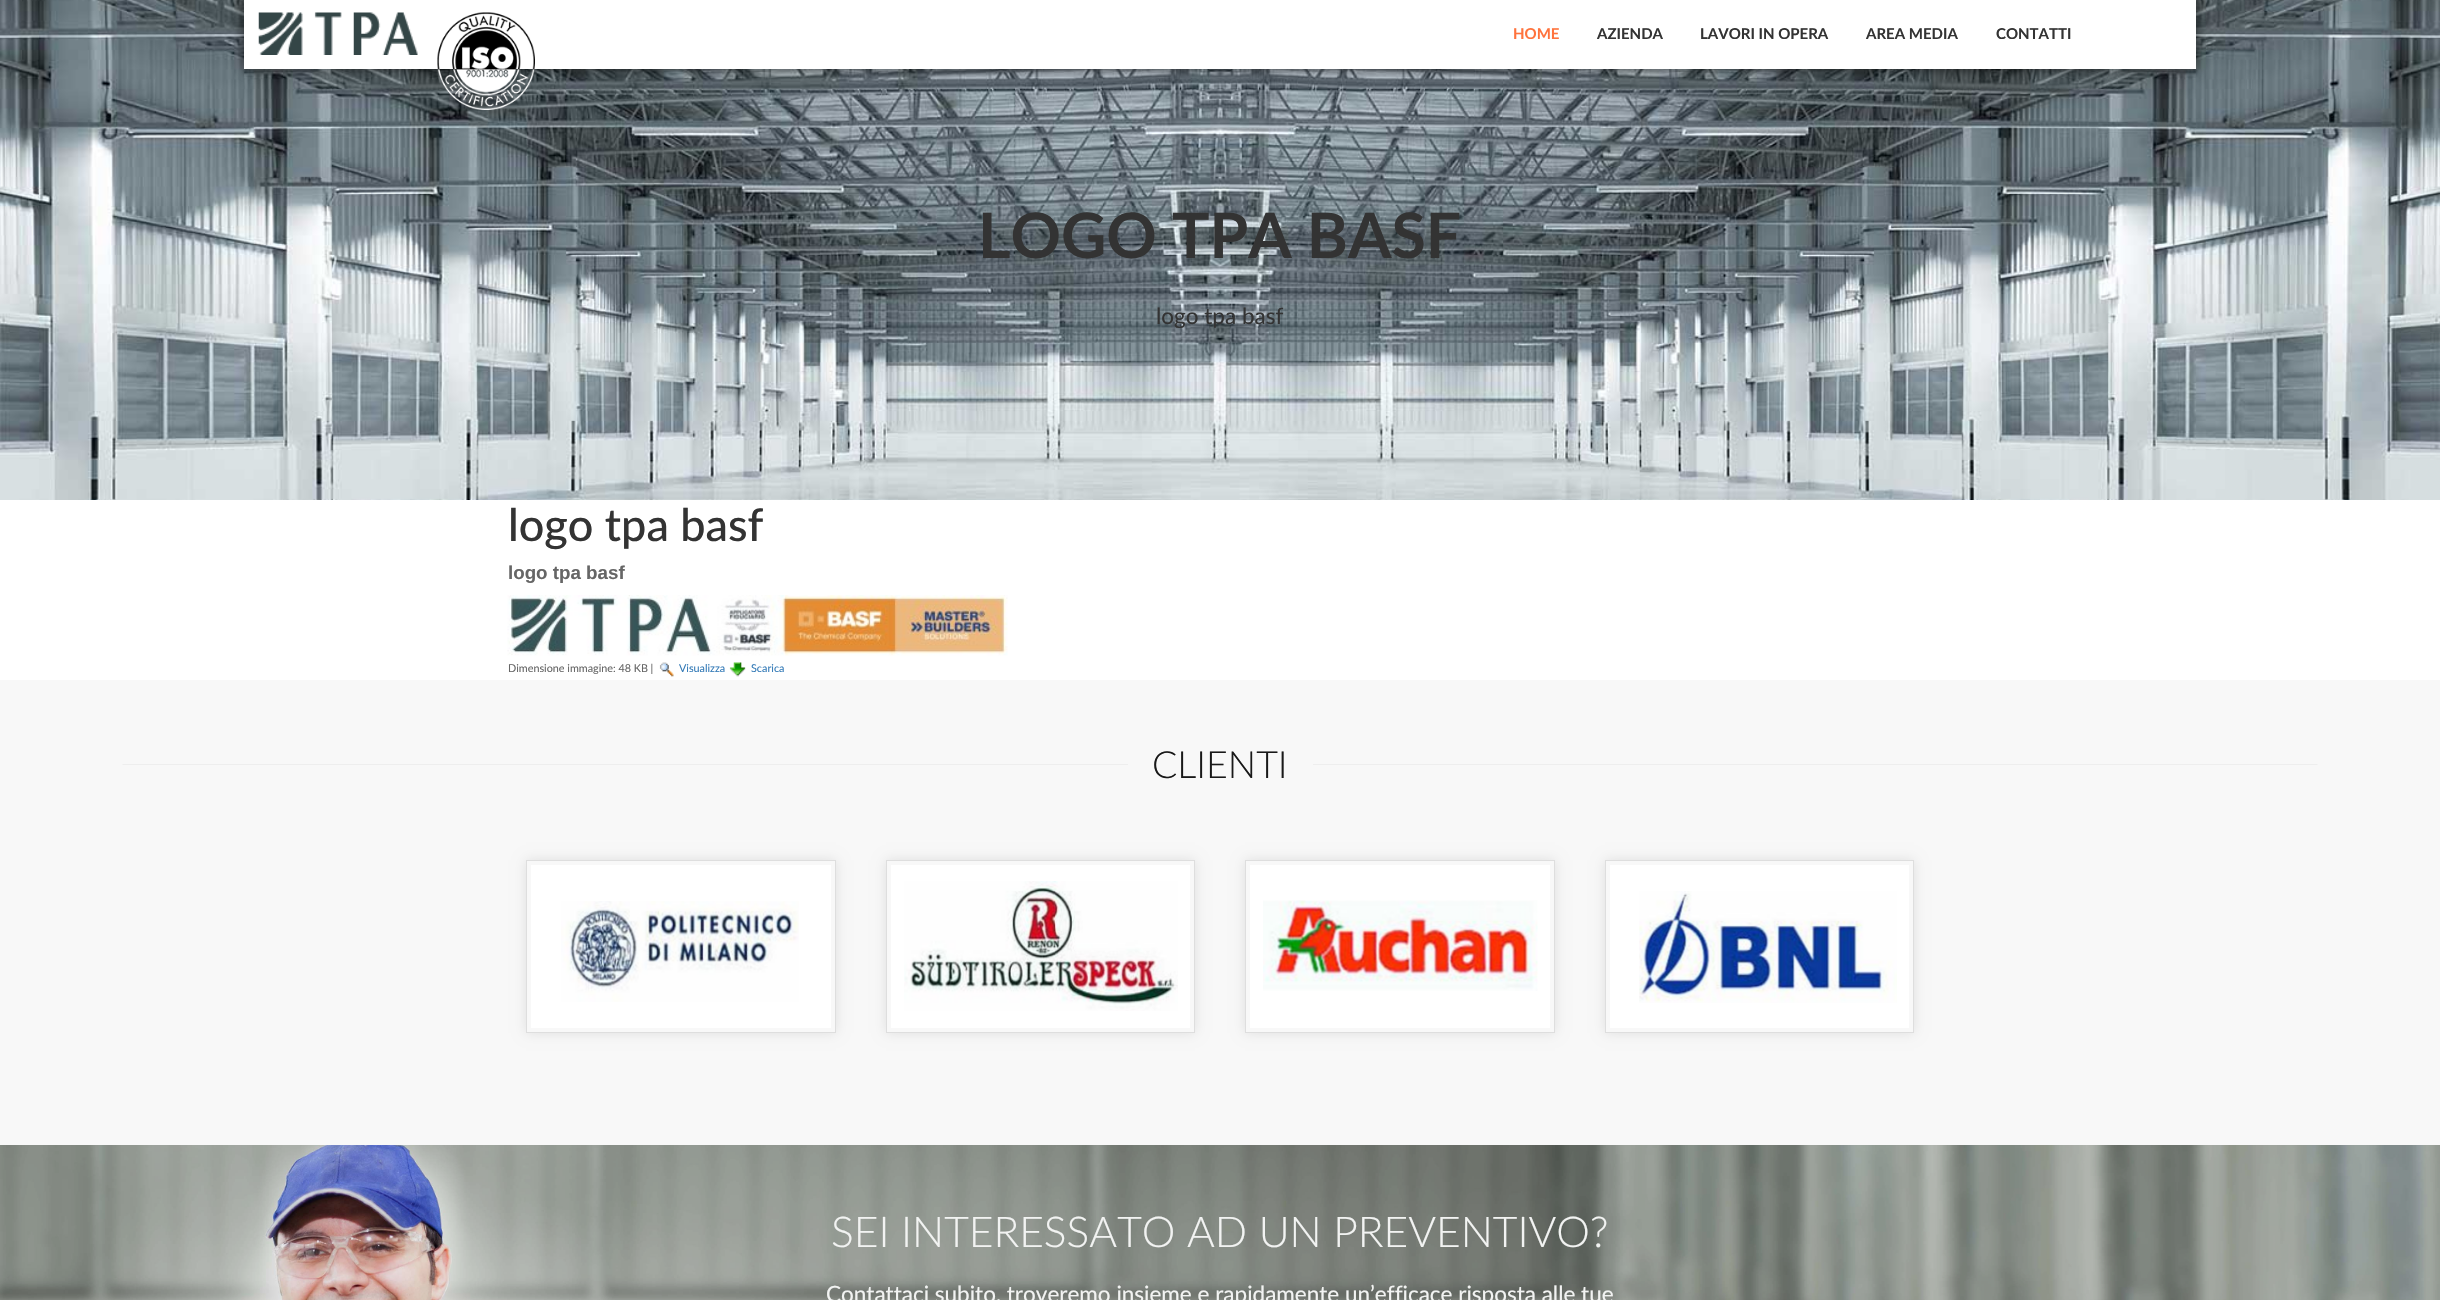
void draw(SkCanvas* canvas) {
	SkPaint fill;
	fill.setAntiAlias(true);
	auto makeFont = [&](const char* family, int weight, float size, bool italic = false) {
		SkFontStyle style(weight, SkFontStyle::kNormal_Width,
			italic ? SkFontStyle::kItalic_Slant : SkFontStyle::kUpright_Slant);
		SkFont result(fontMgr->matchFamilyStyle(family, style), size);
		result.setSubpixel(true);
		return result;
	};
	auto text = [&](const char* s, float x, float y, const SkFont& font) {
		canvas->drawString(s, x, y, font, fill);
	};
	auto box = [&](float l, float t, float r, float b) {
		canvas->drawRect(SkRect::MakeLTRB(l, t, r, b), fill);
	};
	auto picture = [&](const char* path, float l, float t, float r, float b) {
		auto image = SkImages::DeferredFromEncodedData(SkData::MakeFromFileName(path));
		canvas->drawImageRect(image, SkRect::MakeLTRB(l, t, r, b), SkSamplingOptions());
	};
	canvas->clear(0xFFFFFFFF);
	picture("image2.png", 0, 0, 2440, 500);
	fill.setColor(0xB3000000);
	fill.setMaskFilter(SkMaskFilter::MakeBlur(kNormal_SkBlurStyle, 6));
	canvas->drawRect(SkRect::MakeLTRB(244, 0, 2196, 69), fill);
	fill.setMaskFilter(nullptr);
	fill.setColor(0xFFFFFFFF);
	box(244, 0, 2196, 69);
	picture("image0.png", 258, 12, 418, 55);
	picture("image1.png", 437, 12, 535, 110);
	picture("image3.png", 507, 595, 1008, 656);
	picture("image4.png", 659, 662, 674, 677);
	picture("image5.png", 729, 662, 746, 677);
	fill.setColor(0xFFF8F8F8);
	box(0, 680, 2440, 1145);
	picture("image6.png", 122, 764, 2318, 765);
	box(1128, 764, 1313, 765);
	canvas->save();
	canvas->clipPath(SkPathBuilder(SkPathFillType::kEvenOdd).moveTo(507, 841).lineTo(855, 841).lineTo(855, 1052).lineTo(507, 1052).close().moveTo(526, 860).lineTo(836, 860).lineTo(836, 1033).lineTo(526, 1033).close().detach(), true);
	fill.setColor(0x1A000000);
	fill.setMaskFilter(SkMaskFilter::MakeBlur(kNormal_SkBlurStyle, 6));
	canvas->drawRect(SkRect::MakeLTRB(526, 860, 836, 1033), fill);
	fill.setMaskFilter(nullptr);
	canvas->restore();
	fill.setStyle(SkPaint::kStroke_Style);
	fill.setStrokeWidth(1);
	canvas->drawRect(SkRect::MakeLTRB(526.5f, 860.5f, 835.5f, 1032.5f), fill);
	fill.setStyle(SkPaint::kFill_Style);
	fill.setColor(0xFFFFFFFF);
	box(531, 865, 831, 1028);
	picture("image7.png", 561, 901, 799, 1002);
	canvas->save();
	canvas->clipPath(SkPathBuilder(SkPathFillType::kEvenOdd).moveTo(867, 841).lineTo(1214, 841).lineTo(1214, 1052).lineTo(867, 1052).close().moveTo(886, 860).lineTo(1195, 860).lineTo(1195, 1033).lineTo(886, 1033).close().detach(), true);
	fill.setColor(0x1A000000);
	fill.setMaskFilter(SkMaskFilter::MakeBlur(kNormal_SkBlurStyle, 6));
	canvas->drawRect(SkRect::MakeLTRB(886, 860, 1195, 1033), fill);
	fill.setMaskFilter(nullptr);
	canvas->restore();
	fill.setStyle(SkPaint::kStroke_Style);
	canvas->drawRect(SkRect::MakeLTRB(886.5f, 860.5f, 1194.5f, 1032.5f), fill);
	fill.setStyle(SkPaint::kFill_Style);
	fill.setColor(0xFFFFFFFF);
	box(891, 865, 1190, 1028);
	picture("image8.png", 904, 881, 1178, 1011);
	canvas->save();
	canvas->clipPath(SkPathBuilder(SkPathFillType::kEvenOdd).moveTo(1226, 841).lineTo(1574, 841).lineTo(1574, 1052).lineTo(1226, 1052).close().moveTo(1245, 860).lineTo(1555, 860).lineTo(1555, 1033).lineTo(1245, 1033).close().detach(), true);
	fill.setColor(0x1A000000);
	fill.setMaskFilter(SkMaskFilter::MakeBlur(kNormal_SkBlurStyle, 6));
	canvas->drawRect(SkRect::MakeLTRB(1245, 860, 1555, 1033), fill);
	fill.setMaskFilter(nullptr);
	canvas->restore();
	fill.setStyle(SkPaint::kStroke_Style);
	canvas->drawRect(SkRect::MakeLTRB(1245.5f, 860.5f, 1554.5f, 1032.5f), fill);
	fill.setStyle(SkPaint::kFill_Style);
	fill.setColor(0xFFFFFFFF);
	box(1250, 865, 1550, 1028);
	picture("image9.png", 1263, 900, 1538, 991);
	canvas->save();
	canvas->clipPath(SkPathBuilder(SkPathFillType::kEvenOdd).moveTo(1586, 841).lineTo(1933, 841).lineTo(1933, 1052).lineTo(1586, 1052).close().moveTo(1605, 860).lineTo(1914, 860).lineTo(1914, 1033).lineTo(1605, 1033).close().detach(), true);
	fill.setColor(0x1A000000);
	fill.setMaskFilter(SkMaskFilter::MakeBlur(kNormal_SkBlurStyle, 6));
	canvas->drawRect(SkRect::MakeLTRB(1605, 860, 1914, 1033), fill);
	fill.setMaskFilter(nullptr);
	canvas->restore();
	fill.setStyle(SkPaint::kStroke_Style);
	canvas->drawRect(SkRect::MakeLTRB(1605.5f, 860.5f, 1913.5f, 1032.5f), fill);
	fill.setStyle(SkPaint::kFill_Style);
	fill.setColor(0xFFFFFFFF);
	box(1610, 865, 1909, 1028);
	picture("image10.png", 1639, 891, 1897, 1003);
	picture("image11.png", 0, 1145, 2440, 1300);
	auto font1 = makeFont("Lato", 700, 15);
	fill.setColor(0xFFFF733D);
	text("HOME", 1513, 39, font1);
	fill.setColor(0xFF333333);
	text("AZIENDA", 1597, 39, font1);
	text("LAVORI IN OPERA", 1700, 39, font1);
	text("AREA MEDIA", 1866, 39, font1);
	text("CONTATTI", 1996, 39, font1);
	auto font2 = makeFont("Lato", 700, 62.5f);
	text("LOGO TPA BASF", 978, 258, font2);
	auto font3 = makeFont("Lato", 400, 22.5f);
	text("logo tpa basf", 1156, 324, font3);
	auto font4 = makeFont("Lato", 500, 45);
	text("logo tpa basf", 508, 541, font4);
	auto font5 = makeFont("Liberation Sans", 700, 18.75f);
	fill.setColor(0xFF666666);
	text("logo tpa basf", 508, 579, font5);
	auto font6 = makeFont("Lato", 400, 10.8f);
	text("Dimensione immagine: 48 KB |", 508, 672, font6);
	fill.setColor(0xFF337AB7);
	text("Visualizza", 679, 672, font6);
	text("Scarica", 751, 672, font6);
	auto font7 = makeFont("Lato", 300, 37.5f);
	fill.setColor(0xFF191919);
	text("CLIENTI", 1152, 778, font7);
	auto font8 = makeFont("Lato", 300, 42.5f);
	fill.setColor(0xFFF2F3F2);
	text("SEI INTERESSATO AD UN PREVENTIVO?", 831, 1247, font8);
	text("Contattaci subito, troveremo insieme e rapidamente un’efficace risposta alle tue", 826, 1302, font3);
}
